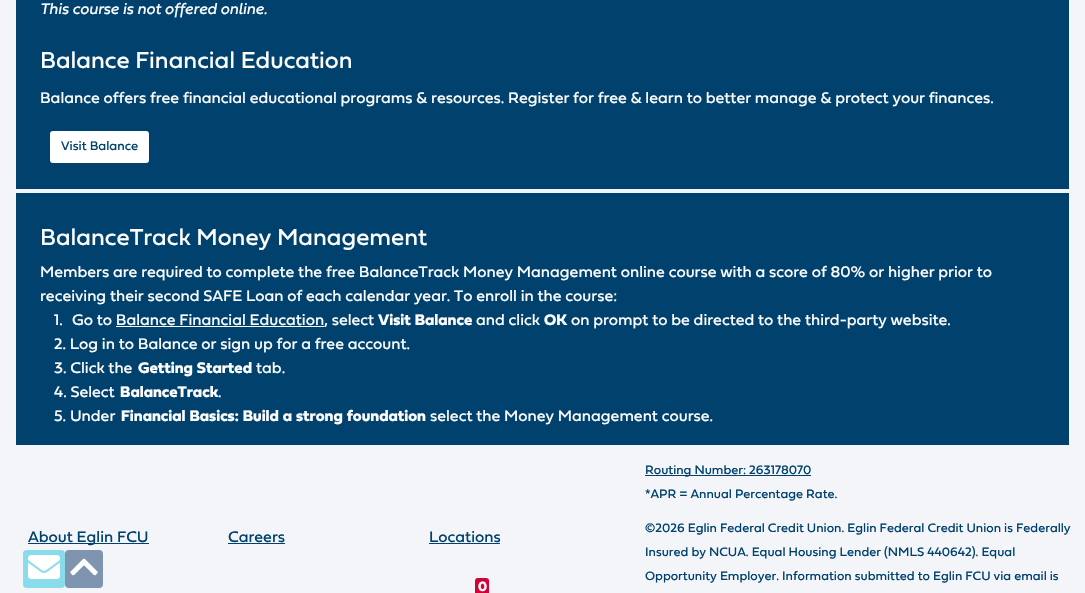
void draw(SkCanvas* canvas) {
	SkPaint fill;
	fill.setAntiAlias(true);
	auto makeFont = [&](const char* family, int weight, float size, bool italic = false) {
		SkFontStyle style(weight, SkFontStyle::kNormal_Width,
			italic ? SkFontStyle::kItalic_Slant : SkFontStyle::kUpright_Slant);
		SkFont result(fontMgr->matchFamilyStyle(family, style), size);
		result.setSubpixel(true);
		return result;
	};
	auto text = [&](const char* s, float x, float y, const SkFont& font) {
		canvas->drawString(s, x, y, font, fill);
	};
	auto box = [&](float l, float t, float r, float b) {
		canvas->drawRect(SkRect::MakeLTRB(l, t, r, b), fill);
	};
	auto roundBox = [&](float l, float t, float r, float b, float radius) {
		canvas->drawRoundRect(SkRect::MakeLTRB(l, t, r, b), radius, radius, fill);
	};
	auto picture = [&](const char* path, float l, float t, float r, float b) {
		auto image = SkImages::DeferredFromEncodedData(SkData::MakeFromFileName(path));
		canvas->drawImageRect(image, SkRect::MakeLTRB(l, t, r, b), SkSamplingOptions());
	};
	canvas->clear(0xFFF3F5F8);
	fill.setColor(0xFF00426D);
	box(16, 0, 1069, 189);
	fill.setColor(0xFFFFFFFF);
	roundBox(50, 131, 149, 163, 3);
	fill.setColor(0xFF00426D);
	box(16, 193, 1069, 445);
	fill.setColor(0xFFFFFFFF);
	box(116, 326, 324, 327);
	fill.setColor(0xFF00426D);
	box(28, 543, 149, 544);
	box(228, 543, 285, 544);
	box(429, 543, 500, 544);
	fill.setColor(0xFFD50037);
	roundBox(475, 578, 489, 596, 3);
	fill.setColor(0xFF00426D);
	box(645, 475, 811, 476);
	fill.setColor(0xFF88DCEC);
	roundBox(23, 550, 65, 588, 4);
	picture("image0.png", 28, 555, 60, 579);
	fill.setColor(0xFF7E94AF);
	roundBox(65, 550, 103, 588, 4);
	picture("image1.png", 70, 558, 98, 576);
	auto font1 = makeFont("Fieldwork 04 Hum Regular", 400, 16, true);
	fill.setColor(0xFFFFFFFF);
	text("This course is not offered online.", 40, 14, font1);
	auto font2 = makeFont("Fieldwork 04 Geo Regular", 400, 24);
	text("Balance Financial Education", 40, 68, font2);
	auto font3 = makeFont("Fieldwork 04 Geo Regular", 400, 16);
	text("Balance offers free financial educational programs & resources. Register for free & learn to better manage & protect your finances.", 40, 103, font3);
	auto font4 = makeFont("Fieldwork 04 Geo Regular", 400, 13);
	fill.setColor(0xFF00426D);
	text("Visit Balance", 61, 150, font4);
	fill.setColor(0xFFFFFFFF);
	text("BalanceTrack Money Management", 40, 245, font2);
	text("Members are required to complete the free BalanceTrack Money Management online course with a score of 80% or higher prior to", 40, 277, font3);
	text("receiving their second SAFE Loan of each calendar year. To enroll in the course:", 40, 301, font3);
	text("1.", 54, 325, font3);
	text("Go to Balance Financial Education, select", 72, 325, font3);
	auto font5 = makeFont("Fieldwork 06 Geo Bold", 700, 16);
	text("Visit Balance", 378, 325, font5);
	text("and click", 476, 325, font3);
	text("OK", 544, 325, font5);
	text("on prompt to be directed to the third-party website.", 571, 325, font3);
	text("2. Log in to Balance or sign up for a free account.", 54, 349, font3);
	text("3. Click the", 54, 373, font3);
	text("Getting Started", 138, 373, font5);
	text("tab.", 256, 373, font3);
	text("4. Select", 54, 397, font3);
	text("BalanceTrack", 120, 397, font5);
	text(".", 218, 397, font3);
	text("5. Under", 54, 421, font3);
	text("Financial Basics: Build a strong foundation", 121, 421, font5);
	text("select the Money Management course.", 430, 421, font3);
	fill.setColor(0xFF00426D);
	text("About Eglin FCU", 28, 542, font3);
	text("Careers", 228, 542, font3);
	text("Locations", 429, 542, font3);
	auto font6 = makeFont("Fieldwork 06 Geo Bold", 700, 14);
	fill.setColor(0xFFFFFFFF);
	text("0", 478, 591, font6);
	auto font7 = makeFont("Fieldwork 04 Geo Regular", 400, 12.8f);
	fill.setColor(0xFF00426D);
	text("Routing Number: 263178070", 645, 474, font7);
	text("*APR = Annual Percentage Rate.", 645, 498, font7);
	text("©2026 Eglin Federal Credit Union. Eglin Federal Credit Union is Federally", 645, 532, font7);
	text("Insured by NCUA. Equal Housing Lender (NMLS 440642). Equal", 645, 556, font7);
	text("Opportunity Employer. Information submitted to Eglin FCU via email is", 645, 580, font7);
}
